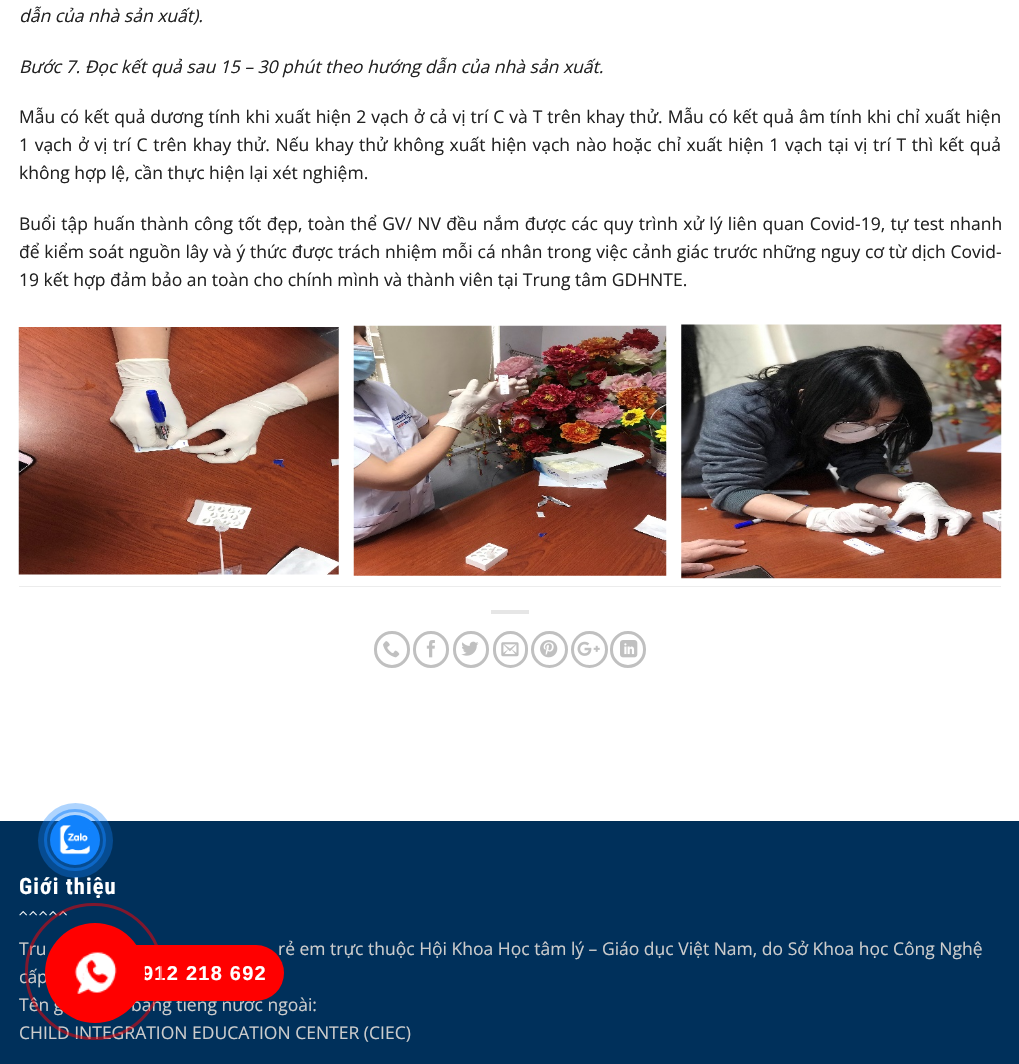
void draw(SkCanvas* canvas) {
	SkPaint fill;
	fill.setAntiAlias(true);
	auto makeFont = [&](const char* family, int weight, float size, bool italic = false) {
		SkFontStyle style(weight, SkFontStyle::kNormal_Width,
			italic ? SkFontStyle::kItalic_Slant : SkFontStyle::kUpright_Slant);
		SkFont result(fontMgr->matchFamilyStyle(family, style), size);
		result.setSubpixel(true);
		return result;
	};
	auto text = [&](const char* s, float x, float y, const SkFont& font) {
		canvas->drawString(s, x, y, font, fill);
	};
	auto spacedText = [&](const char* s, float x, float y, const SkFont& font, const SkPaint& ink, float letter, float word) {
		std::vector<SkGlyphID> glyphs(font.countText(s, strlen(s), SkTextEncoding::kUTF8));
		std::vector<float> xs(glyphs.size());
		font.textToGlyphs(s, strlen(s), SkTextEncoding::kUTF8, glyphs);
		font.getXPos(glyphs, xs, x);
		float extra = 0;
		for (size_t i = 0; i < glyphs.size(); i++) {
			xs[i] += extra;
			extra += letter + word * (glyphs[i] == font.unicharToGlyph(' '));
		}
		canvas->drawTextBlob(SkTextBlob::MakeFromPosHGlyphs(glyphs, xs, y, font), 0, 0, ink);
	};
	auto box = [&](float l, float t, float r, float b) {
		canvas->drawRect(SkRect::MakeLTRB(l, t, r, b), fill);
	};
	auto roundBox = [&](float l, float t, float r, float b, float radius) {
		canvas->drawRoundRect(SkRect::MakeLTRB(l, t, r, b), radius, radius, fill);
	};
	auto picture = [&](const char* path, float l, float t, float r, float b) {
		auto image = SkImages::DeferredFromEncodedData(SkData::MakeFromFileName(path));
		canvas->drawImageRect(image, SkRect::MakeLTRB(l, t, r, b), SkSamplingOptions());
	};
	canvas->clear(0xFFFFFFFF);
	picture("image0.png", 353, 325, 667, 576);
	picture("image1.png", 681, 324, 1002, 579);
	fill.setColor(0xFFECECEC);
	box(19, 586, 1001, 587);
	picture("image2.png", 18, 327, 339, 575);
	fill.setColor(0xFFE6E6E6);
	box(491, 610, 529, 614);
	fill.setStyle(SkPaint::kStroke_Style);
	fill.setStrokeWidth(3);
	fill.setColor(0xFFC0C0C0);
	canvas->drawRoundRect(SkRect::MakeLTRB(375.5f, 632.5f, 408.5f, 666.5f), 16.5f, 16.5f, fill);
	picture("image3.png", 383, 641, 400, 658);
	canvas->drawRoundRect(SkRect::MakeLTRB(414.5f, 632.5f, 447.5f, 666.5f), 16.5f, 16.5f, fill);
	picture("image4.png", 426, 640, 435, 658);
	canvas->drawRoundRect(SkRect::MakeLTRB(454.5f, 632.5f, 487.5f, 666.5f), 16.5f, 16.5f, fill);
	picture("image5.png", 461, 641, 479, 656);
	canvas->drawRoundRect(SkRect::MakeLTRB(494.5f, 632.5f, 526.5f, 666.5f), 16, 16, fill);
	picture("image6.png", 501, 642, 519, 657);
	canvas->drawCircle(549.5f, 649.5f, 17, fill);
	picture("image7.png", 540, 640, 558, 658);
	canvas->drawCircle(589.5f, 649.5f, 17, fill);
	picture("image8.png", 577, 641, 600, 656);
	canvas->drawRoundRect(SkRect::MakeLTRB(611.5f, 632.5f, 644.5f, 666.5f), 16.5f, 16.5f, fill);
	picture("image9.png", 620, 640, 638, 658);
	fill.setStyle(SkPaint::kFill_Style);
	fill.setColor(0xFF00305B);
	box(0, 822, 1019, 1064);
	fill.setColor(0xFF002E56);
	box(0, 821, 1019, 822);
	picture("image10.png", 19, 911, 67, 916);
	fill.setStyle(SkPaint::kStroke_Style);
	fill.setColor(0x801182FC);
	canvas->drawCircle(75, 840, 29.5f, fill);
	auto font1 = makeFont("Open Sans", 400, 17.5f, true);
	fill.setStyle(SkPaint::kFill_Style);
	fill.setColor(0xFF222222);
	text("dẫn của nhà sản xuất).", 19, 22, font1);
	text("Bước 7. Đọc kết quả sau 15 – 30 phút theo hướng dẫn của nhà sản xuất.", 19, 73, font1);
	auto font2 = makeFont("Open Sans", 400, 17.5f);
	spacedText("Mẫu có kết quả dương tính khi xuất hiện 2 vạch ở cả vị trí C và T trên khay thử. Mẫu có kết quả âm tính khi chỉ xuất hiện", 19, 123, font2, fill, 0, 0.4f);
	spacedText("1 vạch ở vị trí C trên khay thử. Nếu khay thử không xuất hiện vạch nào hoặc chỉ xuất hiện 1 vạch tại vị trí T thì kết quả", 19, 151, font2, fill, 0, 1.1f);
	text("không hợp lệ, cần thực hiện lại xét nghiệm.", 19, 179, font2);
	spacedText("Buổi tập huấn thành công tốt đẹp, toàn thể GV/ NV đều nắm được các quy trình xử lý liên quan Covid-19, tự test nhanh", 19, 230, font2, fill, 0, 0.75f);
	spacedText("để kiểm soát nguồn lây và ý thức được trách nhiệm mỗi cá nhân trong việc cảnh giác trước những nguy cơ từ dịch Covid-", 19, 258, font2, fill, 0, 0.25f);
	text("19 kết hợp đảm bảo an toàn cho chính mình và thành viên tại Trung tâm GDHNTE.", 19, 286, font2);
	auto font3 = makeFont("Roboto Condensed", 700, 22.5f);
	fill.setColor(0xFFFFFFFF);
	spacedText("Giới thiệu", 19, 894, font3, fill, 1.1f, 0);
	fill.setColor(0xFFCCCCCC);
	text("Tru", 19, 955, font2);
	text("rẻ em trực thuộc Hội Khoa Học tâm lý – Giáo dục Việt Nam, do Sở Khoa học Công Nghệ", 278, 955, font2);
	text("cấp", 19, 983, font2);
	text("Tên g", 19, 1011, font2);
	text("bằng tiếng nước ngoài:", 131, 1011, font2);
	text("CHILD INTEGRATION EDUCATION CENTER (CIEC)", 19, 1039, font2);
	fill.setColor(0x571182FC);
	canvas->drawCircle(75.5f, 840.5f, 37.5f, fill);
	fill.setColor(0xFF1182FC);
	canvas->drawCircle(75, 840, 25, fill);
	picture("image11.png", 59, 825, 90, 855);
	fill.setColor(0xFFFF0000);
	roundBox(78, 945, 284, 1001, 28);
	auto font4 = makeFont("Liberation Sans", 700, 20);
	fill.setColor(0xFFFFFFFF);
	spacedText("912 218 692", 142, 980, font4, fill, 1.25f, 0);
	fill.setStyle(SkPaint::kStroke_Style);
	fill.setColor(0x80FF0000);
	canvas->drawRoundRect(SkRect::MakeLTRB(26.5f, 904.5f, 161.5f, 1038.5f), 67, 67, fill);
	fill.setStyle(SkPaint::kFill_Style);
	fill.setColor(0xFFFF0000);
	canvas->drawCircle(95, 973, 50, fill);
	picture("image12.png", 74, 951, 117, 994);
}
